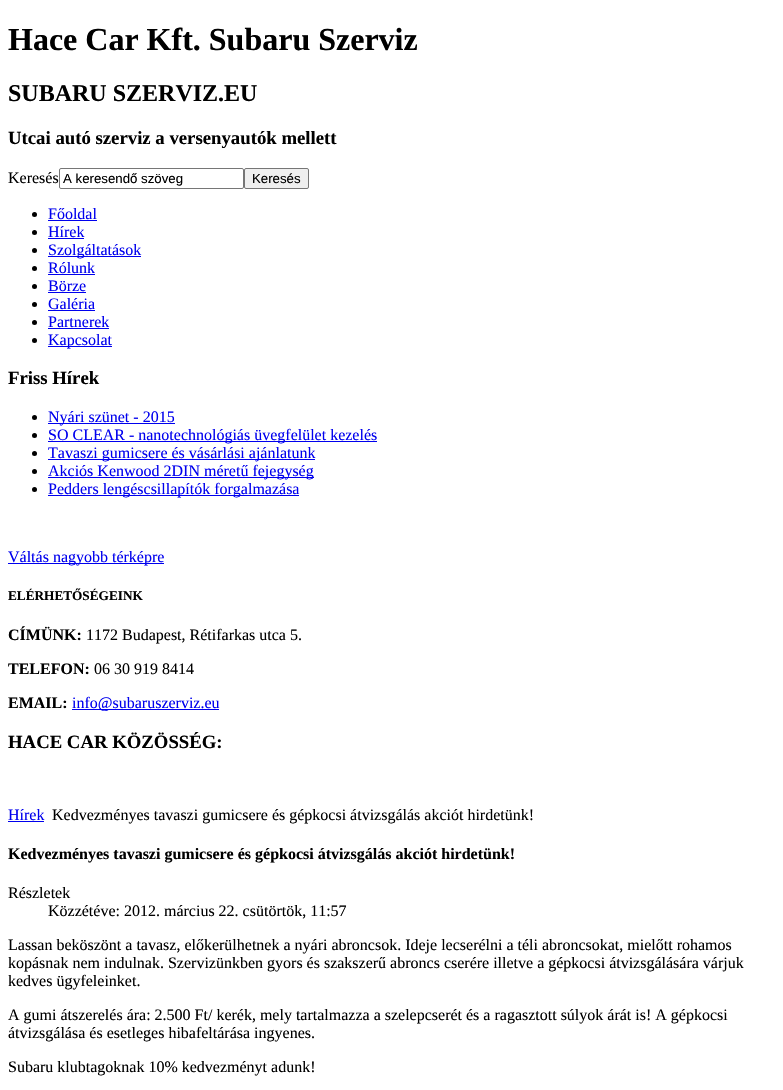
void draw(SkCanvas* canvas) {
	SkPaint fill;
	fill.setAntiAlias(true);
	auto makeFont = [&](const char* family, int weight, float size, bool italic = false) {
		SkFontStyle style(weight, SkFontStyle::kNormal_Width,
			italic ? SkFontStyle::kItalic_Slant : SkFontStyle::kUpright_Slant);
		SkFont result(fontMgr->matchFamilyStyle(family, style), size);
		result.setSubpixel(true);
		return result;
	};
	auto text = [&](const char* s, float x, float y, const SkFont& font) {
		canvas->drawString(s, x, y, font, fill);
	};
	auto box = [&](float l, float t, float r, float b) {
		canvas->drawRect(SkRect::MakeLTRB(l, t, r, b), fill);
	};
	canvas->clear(0xFFFFFFFF);
	fill.setStyle(SkPaint::kStroke_Style);
	fill.setStrokeWidth(1);
	fill.setColor(0xFF767676);
	canvas->drawRoundRect(SkRect::MakeLTRB(59.5f, 168.5f, 243.5f, 188.5f), 1.5f, 1.5f, fill);
	fill.setStyle(SkPaint::kFill_Style);
	fill.setColor(0xFFEFEFEF);
	canvas->drawRoundRect(SkRect::MakeLTRB(244.5f, 168.5f, 308.5f, 188.5f), 1.5f, 1.5f, fill);
	fill.setStyle(SkPaint::kStroke_Style);
	fill.setColor(0xFF767676);
	canvas->drawRoundRect(SkRect::MakeLTRB(244.5f, 168.5f, 308.5f, 188.5f), 1.5f, 1.5f, fill);
	fill.setStyle(SkPaint::kFill_Style);
	fill.setColor(0xFF000000);
	canvas->drawCircle(34.5f, 214.5f, 2.5f, fill);
	fill.setColor(0xFF0000EE);
	box(48, 220, 97, 221);
	fill.setColor(0xFF000000);
	canvas->drawCircle(34.5f, 232.5f, 2.5f, fill);
	fill.setColor(0xFF0000EE);
	box(48, 238, 84, 239);
	fill.setColor(0xFF000000);
	canvas->drawCircle(34.5f, 250.5f, 2.5f, fill);
	fill.setColor(0xFF0000EE);
	box(48, 256, 141, 257);
	fill.setColor(0xFF000000);
	canvas->drawCircle(34.5f, 268.5f, 2.5f, fill);
	fill.setColor(0xFF0000EE);
	box(48, 274, 95, 275);
	fill.setColor(0xFF000000);
	canvas->drawCircle(34.5f, 286.5f, 2.5f, fill);
	fill.setColor(0xFF0000EE);
	box(48, 292, 86, 293);
	fill.setColor(0xFF000000);
	canvas->drawCircle(34.5f, 304.5f, 2.5f, fill);
	fill.setColor(0xFF0000EE);
	box(48, 310, 95, 311);
	fill.setColor(0xFF000000);
	canvas->drawCircle(34.5f, 322.5f, 2.5f, fill);
	fill.setColor(0xFF0000EE);
	box(48, 328, 109, 329);
	fill.setColor(0xFF000000);
	canvas->drawCircle(34.5f, 340.5f, 2.5f, fill);
	fill.setColor(0xFF0000EE);
	box(48, 346, 112, 347);
	fill.setColor(0xFF000000);
	canvas->drawCircle(34.5f, 417.5f, 2.5f, fill);
	fill.setColor(0xFF0000EE);
	box(48, 423, 175, 424);
	fill.setColor(0xFF000000);
	canvas->drawCircle(34.5f, 435.5f, 2.5f, fill);
	fill.setColor(0xFF0000EE);
	box(48, 441, 377, 442);
	fill.setColor(0xFF000000);
	canvas->drawCircle(34.5f, 453.5f, 2.5f, fill);
	fill.setColor(0xFF0000EE);
	box(48, 459, 315, 460);
	fill.setColor(0xFF000000);
	canvas->drawCircle(34.5f, 471.5f, 2.5f, fill);
	fill.setColor(0xFF0000EE);
	box(48, 477, 314, 478);
	fill.setColor(0xFF000000);
	canvas->drawCircle(34.5f, 489.5f, 2.5f, fill);
	fill.setColor(0xFF0000EE);
	box(48, 495, 299, 496);
	box(8, 563, 164, 564);
	box(72, 709, 219, 710);
	box(8, 821, 44, 822);
	auto font1 = makeFont("Liberation Serif", 700, 32);
	fill.setColor(0xFF000000);
	text("Hace Car Kft. Subaru Szerviz", 8, 50, font1);
	auto font2 = makeFont("Liberation Serif", 700, 24);
	text("SUBARU SZERVIZ.EU", 8, 101, font2);
	auto font3 = makeFont("Liberation Serif", 700, 18.75f);
	text("Utcai autó szerviz a versenyautók mellett", 8, 144, font3);
	auto font4 = makeFont("Liberation Serif", 400, 16);
	text("Keresés", 8, 183, font4);
	auto font5 = makeFont("Liberation Sans", 400, 13.25f);
	text("A keresendő szöveg", 63, 183, font5);
	text("Keresés", 252, 183, font5);
	fill.setColor(0xFF0000EE);
	text("Főoldal", 48, 219, font4);
	text("Hírek", 48, 237, font4);
	text("Szolgáltatások", 48, 255, font4);
	text("Rólunk", 48, 273, font4);
	text("Börze", 48, 291, font4);
	text("Galéria", 48, 309, font4);
	text("Partnerek", 48, 327, font4);
	text("Kapcsolat", 48, 345, font4);
	fill.setColor(0xFF000000);
	text("Friss Hírek", 8, 384, font3);
	fill.setColor(0xFF0000EE);
	text("Nyári szünet - 2015", 48, 422, font4);
	text("SO CLEAR - nanotechnológiás üvegfelület kezelés", 48, 440, font4);
	text("Tavaszi gumicsere és vásárlási ajánlatunk", 48, 458, font4);
	text("Akciós Kenwood 2DIN méretű fejegység", 48, 476, font4);
	text("Pedders lengéscsillapítók forgalmazása", 48, 494, font4);
	text("Váltás nagyobb térképre", 8, 562, font4);
	auto font6 = makeFont("Liberation Serif", 700, 13.25f);
	fill.setColor(0xFF000000);
	text("ELÉRHETŐSÉGEINK", 8, 600, font6);
	auto font7 = makeFont("Liberation Serif", 700, 16);
	text("CÍMÜNK:", 8, 640, font7);
	text("1172 Budapest, Rétifarkas utca 5.", 86, 640, font4);
	text("TELEFON:", 8, 674, font7);
	text("06 30 919 8414", 94, 674, font4);
	text("EMAIL:", 8, 708, font7);
	fill.setColor(0xFF0000EE);
	text("info@subaruszerviz.eu", 72, 708, font4);
	fill.setColor(0xFF000000);
	text("HACE CAR KÖZÖSSÉG:", 8, 748, font3);
	fill.setColor(0xFF0000EE);
	text("Hírek", 8, 820, font4);
	fill.setColor(0xFF000000);
	text("Kedvezményes tavaszi gumicsere és gépkocsi átvizsgálás akciót hirdetünk!", 52, 820, font4);
	text("Kedvezményes tavaszi gumicsere és gépkocsi átvizsgálás akciót hirdetünk!", 8, 859, font7);
	text("Részletek", 8, 898, font4);
	text("Közzétéve: 2012. március 22. csütörtök, 11:57", 48, 916, font4);
	text("Lassan beköszönt a tavasz, előkerülhetnek a nyári abroncsok. Ideje lecserélni a téli abroncsokat, mielőtt rohamos", 8, 950, font4);
	text("kopásnak nem indulnak. Szervizünkben gyors és szakszerű abroncs cserére illetve a gépkocsi átvizsgálására várjuk", 8, 968, font4);
	text("kedves ügyfeleinket.", 8, 986, font4);
	text("A gumi átszerelés ára: 2.500 Ft/ kerék, mely tartalmazza a szelepcserét és a ragasztott súlyok árát is! A gépkocsi", 8, 1020, font4);
	text("átvizsgálása és esetleges hibafeltárása ingyenes.", 8, 1038, font4);
	text("Subaru klubtagoknak 10% kedvezményt adunk!", 8, 1072, font4);
}
